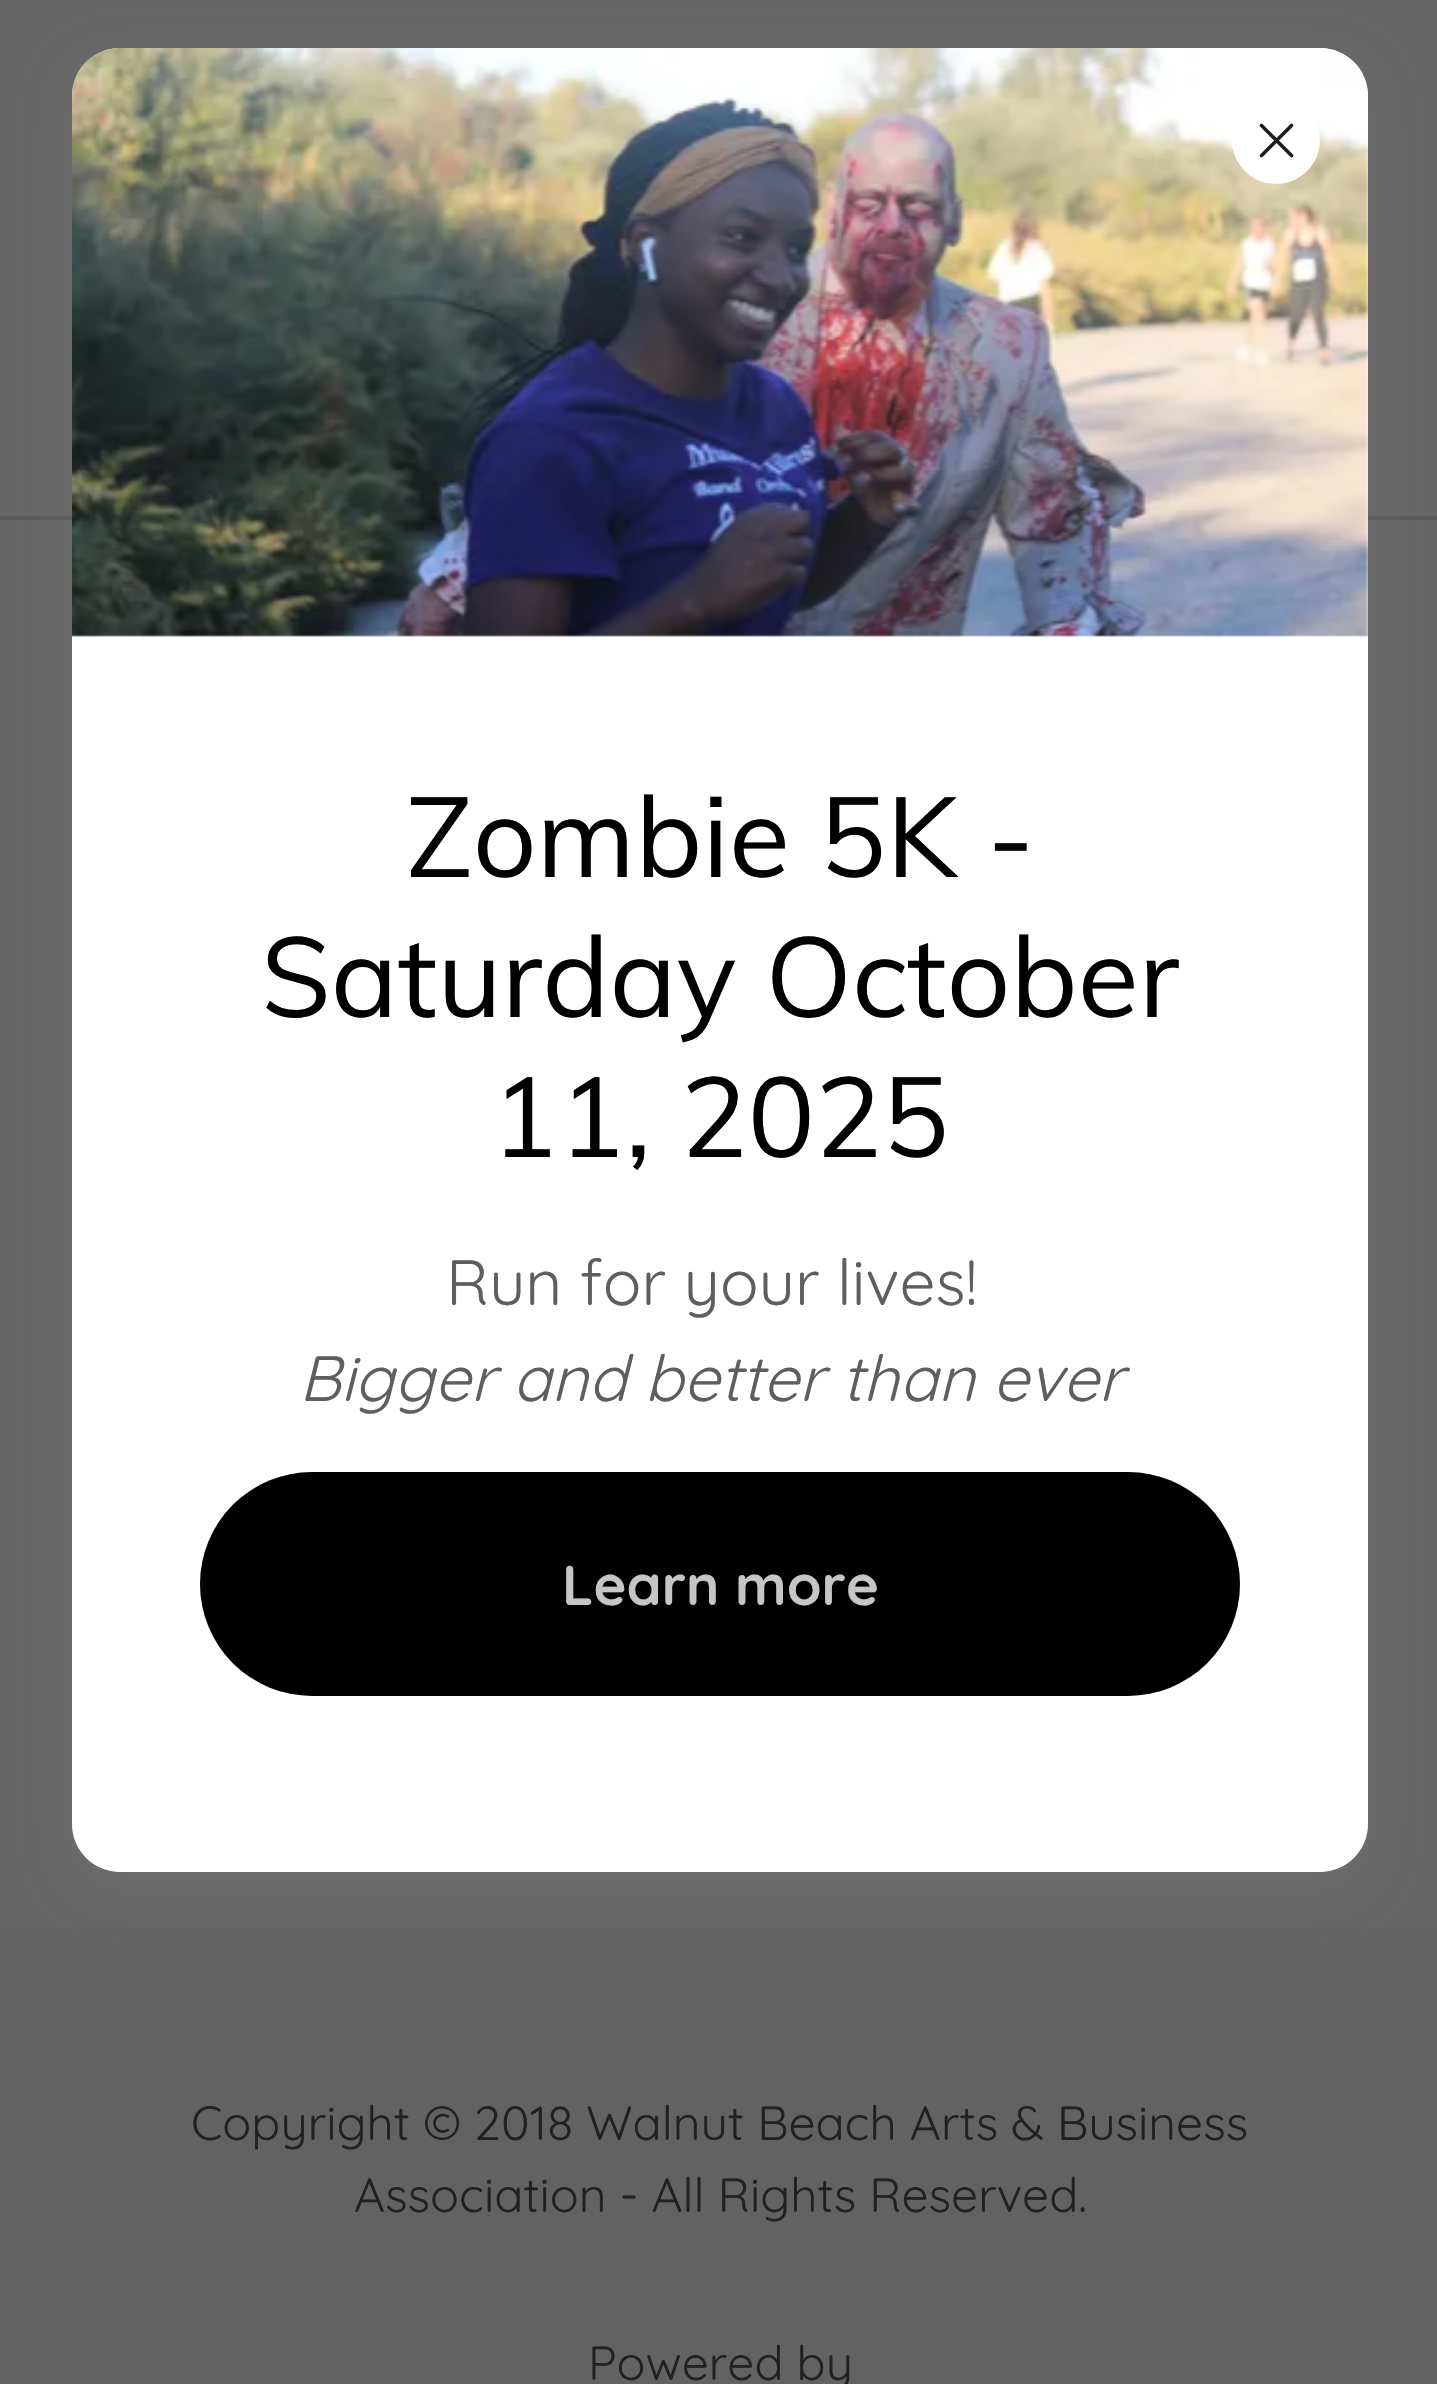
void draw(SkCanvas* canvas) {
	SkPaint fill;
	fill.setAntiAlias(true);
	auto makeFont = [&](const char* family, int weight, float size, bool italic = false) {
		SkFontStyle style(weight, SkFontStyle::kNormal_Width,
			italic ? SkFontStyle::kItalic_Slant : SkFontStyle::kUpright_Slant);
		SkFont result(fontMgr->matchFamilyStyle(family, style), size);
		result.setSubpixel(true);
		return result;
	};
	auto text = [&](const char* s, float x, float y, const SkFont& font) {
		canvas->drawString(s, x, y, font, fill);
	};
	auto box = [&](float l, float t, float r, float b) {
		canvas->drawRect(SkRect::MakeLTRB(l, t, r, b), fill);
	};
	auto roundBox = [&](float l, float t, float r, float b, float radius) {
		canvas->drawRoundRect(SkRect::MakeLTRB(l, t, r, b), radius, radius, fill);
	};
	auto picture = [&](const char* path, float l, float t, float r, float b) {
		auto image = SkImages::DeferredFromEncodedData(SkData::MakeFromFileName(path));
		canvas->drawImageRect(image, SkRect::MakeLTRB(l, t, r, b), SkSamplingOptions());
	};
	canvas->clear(0xFF626262);
	fill.setColor(0xFF666666);
	box(0, 0, 1437, 516);
	fill.setColor(0xFF5A5A5A);
	box(0, 516, 1437, 520);
	fill.setColor(0xFF666666);
	box(0, 520, 1437, 1928);
	fill.setColor(0x66757575);
	fill.setMaskFilter(SkMaskFilter::MakeBlur(kNormal_SkBlurStyle, 24));
	canvas->drawRoundRect(SkRect::MakeLTRB(72, 64, 1368, 1888), 48, 48, fill);
	fill.setMaskFilter(nullptr);
	fill.setColor(0xFFFFFFFF);
	roundBox(72, 48, 1368, 1872, 48);
	picture("image1.png", 72, 48, 1368, 637);
	canvas->drawCircle(1276, 140, 44, fill);
	picture("image0.png", 1259, 123, 1294, 158);
	fill.setColor(0xFF000000);
	roundBox(200, 1472, 1240, 1696, 112);
	auto font1 = makeFont("Muli", 400, 112);
	text("Zombie 5K -", 406, 877, font1);
	text("Saturday October", 261, 1017, font1);
	text("11, 2025", 491, 1157, font1);
	auto font2 = makeFont("Quicksand", 400, 64);
	fill.setColor(0xFF5E5E5E);
	text("Run for your lives!", 446, 1305, font2);
	auto font3 = makeFont("Quicksand", 400, 64, true);
	text("Bigger and better than ever", 299, 1401, font3);
	auto font4 = makeFont("Quicksand", 700, 56);
	fill.setColor(0xFFC6C6C6);
	text("Learn more", 562, 1605, font4);
	auto font5 = makeFont("Quicksand", 400, 48);
	fill.setColor(0xFF212121);
	text("Copyright © 2018 Walnut Beach Arts & Business", 191, 2140, font5);
	text("Association - All Rights Reserved.", 354, 2212, font5);
	text("Powered by", 588, 2380, font5);
}
